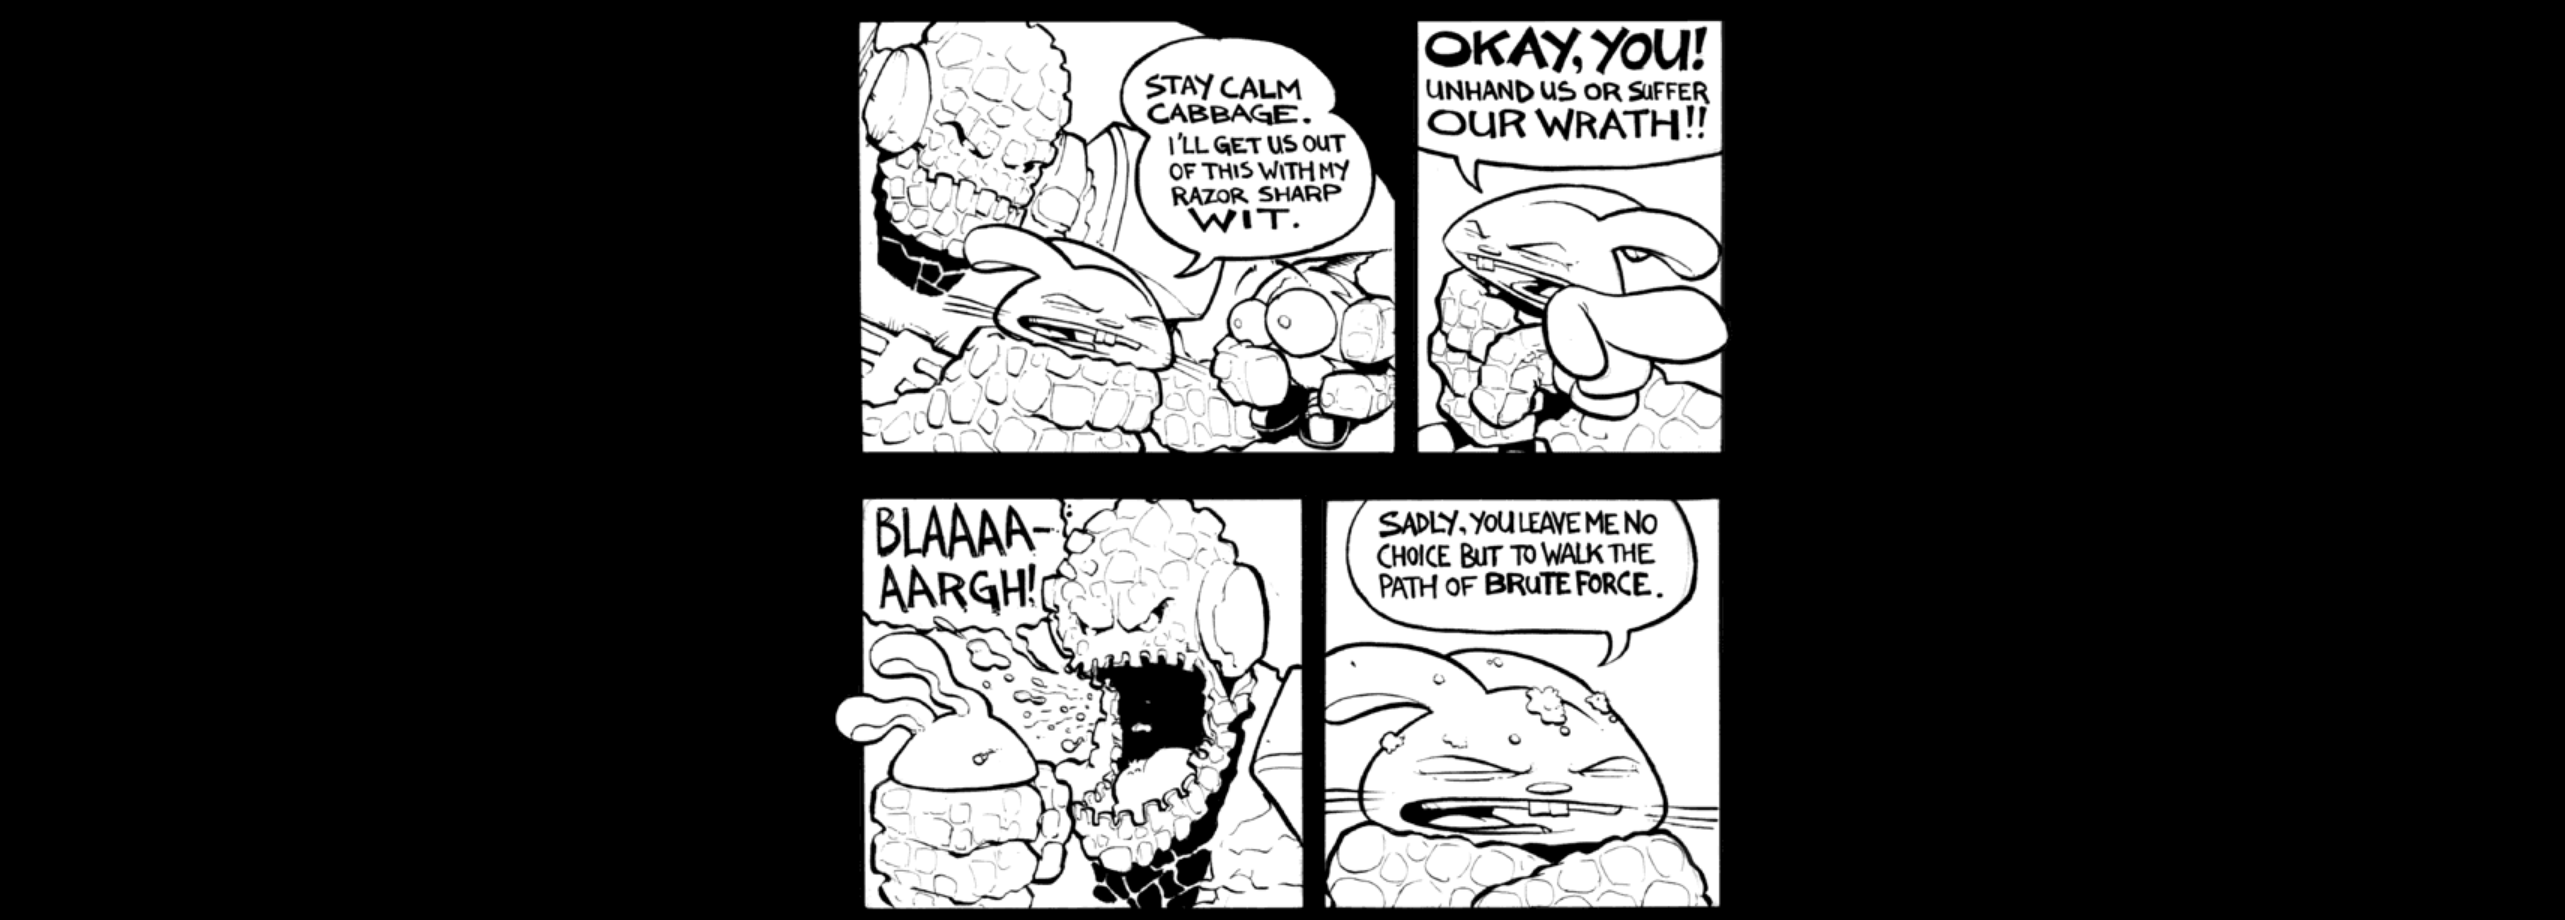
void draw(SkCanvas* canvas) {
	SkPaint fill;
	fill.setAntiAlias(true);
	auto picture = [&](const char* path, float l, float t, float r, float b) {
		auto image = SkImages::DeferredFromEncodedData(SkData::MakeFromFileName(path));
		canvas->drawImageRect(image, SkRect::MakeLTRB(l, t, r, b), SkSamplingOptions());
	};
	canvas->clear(0xFF000000);
	picture("image0.png", 857, 19, 1733, 454);
	picture("image1.png", 835, 495, 1724, 910);
}
